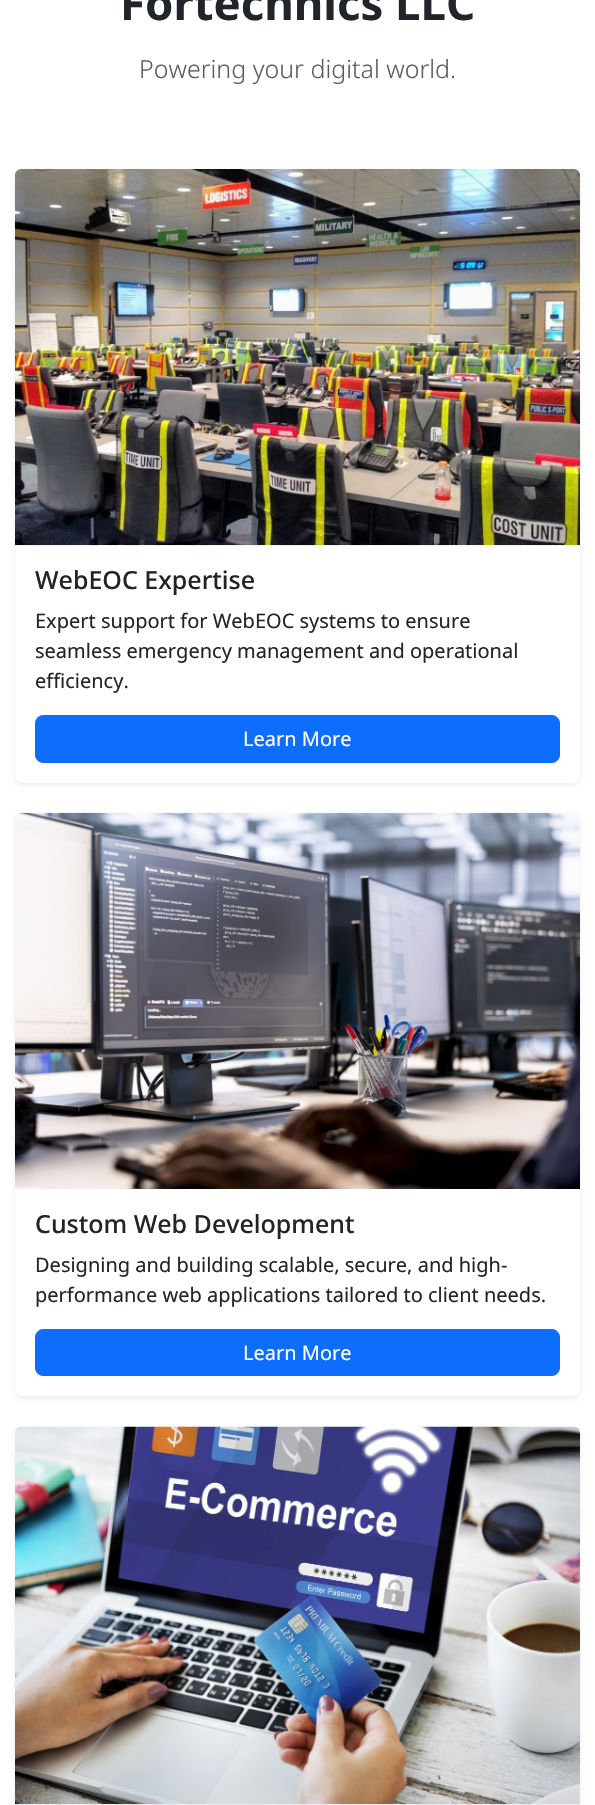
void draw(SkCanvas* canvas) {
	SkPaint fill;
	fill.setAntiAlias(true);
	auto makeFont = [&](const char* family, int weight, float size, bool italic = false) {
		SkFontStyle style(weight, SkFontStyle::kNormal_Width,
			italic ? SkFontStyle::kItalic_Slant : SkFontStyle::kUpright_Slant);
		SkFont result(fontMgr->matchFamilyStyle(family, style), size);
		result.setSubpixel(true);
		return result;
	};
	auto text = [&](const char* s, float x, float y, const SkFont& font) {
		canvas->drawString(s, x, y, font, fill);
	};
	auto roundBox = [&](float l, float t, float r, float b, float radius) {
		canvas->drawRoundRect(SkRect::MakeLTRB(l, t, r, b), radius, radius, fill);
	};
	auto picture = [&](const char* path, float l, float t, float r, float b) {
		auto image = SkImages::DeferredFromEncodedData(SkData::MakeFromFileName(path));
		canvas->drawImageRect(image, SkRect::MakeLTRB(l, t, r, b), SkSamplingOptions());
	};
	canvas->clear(0xFFFFFFFF);
	fill.setColor(0x12000000);
	fill.setMaskFilter(SkMaskFilter::MakeBlur(kNormal_SkBlurStyle, 2.5f));
	canvas->drawRoundRect(SkRect::MakeLTRB(15, 171, 580, 785), 8, 8, fill);
	fill.setMaskFilter(nullptr);
	fill.setColor(0xFFFFFFFF);
	roundBox(15, 169, 580, 783, 8);
	picture("image0.png", 15, 169, 580, 546);
	fill.setColor(0xFF0D6EFD);
	canvas->drawRoundRect(SkRect::MakeLTRB(35.5f, 715.5f, 559.5f, 762.5f), 7.5f, 7.5f, fill);
	fill.setStyle(SkPaint::kStroke_Style);
	fill.setStrokeWidth(1);
	canvas->drawRoundRect(SkRect::MakeLTRB(35.5f, 715.5f, 559.5f, 762.5f), 7.5f, 7.5f, fill);
	canvas->save();
	canvas->clipPath(SkPathBuilder(SkPathFillType::kEvenOdd).moveTo(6, 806).lineTo(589, 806).lineTo(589, 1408).lineTo(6, 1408).close().moveTo(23, 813).lineTo(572, 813).cubicTo(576.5f, 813, 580, 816.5f, 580, 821).lineTo(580, 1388).cubicTo(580, 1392.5f, 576.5f, 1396, 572, 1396).lineTo(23, 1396).cubicTo(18.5f, 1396, 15, 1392.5f, 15, 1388).lineTo(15, 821).cubicTo(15, 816.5f, 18.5f, 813, 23, 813).close().detach(), true);
	fill.setStyle(SkPaint::kFill_Style);
	fill.setColor(0x12000000);
	fill.setMaskFilter(SkMaskFilter::MakeBlur(kNormal_SkBlurStyle, 2.5f));
	canvas->drawRoundRect(SkRect::MakeLTRB(15, 815, 580, 1399), 8, 8, fill);
	fill.setMaskFilter(nullptr);
	canvas->restore();
	picture("image1.png", 15, 812, 580, 1189);
	fill.setColor(0xFF0D6EFD);
	canvas->drawRoundRect(SkRect::MakeLTRB(35.5f, 1329.5f, 559.5f, 1375.5f), 7.5f, 7.5f, fill);
	fill.setStyle(SkPaint::kStroke_Style);
	canvas->drawRoundRect(SkRect::MakeLTRB(35.5f, 1329.5f, 559.5f, 1375.5f), 7.5f, 7.5f, fill);
	fill.setStyle(SkPaint::kFill_Style);
	fill.setColor(0x12000000);
	fill.setMaskFilter(SkMaskFilter::MakeBlur(kNormal_SkBlurStyle, 2.5f));
	canvas->drawRoundRect(SkRect::MakeLTRB(15, 1429, 580, 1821), 8, 8, fill);
	fill.setMaskFilter(nullptr);
	picture("image2.png", 15, 1426, 580, 1804);
	auto font1 = makeFont("Noto Sans", 700, 45.5f);
	fill.setColor(0xFF212529);
	text("Fortechnics LLC", 120, 20, font1);
	auto font2 = makeFont("Noto Sans", 300, 25);
	fill.setColor(0xFF595C5F);
	text("Powering your digital world.", 139, 78, font2);
	auto font3 = makeFont("Noto Sans", 500, 25);
	fill.setColor(0xFF212529);
	text("WebEOC Expertise", 35, 589, font3);
	auto font4 = makeFont("Noto Sans", 400, 20);
	text("Expert support for WebEOC systems to ensure", 35, 628, font4);
	text("seamless emergency management and operational", 35, 658, font4);
	text("efficiency.", 35, 688, font4);
	fill.setColor(0xFFFFFFFF);
	text("Learn More", 243, 746, font4);
	fill.setColor(0xFF212529);
	text("Custom Web Development", 35, 1233, font3);
	text("Designing and building scalable, secure, and high-", 35, 1272, font4);
	text("performance web applications tailored to client needs.", 35, 1302, font4);
	fill.setColor(0xFFFFFFFF);
	text("Learn More", 243, 1360, font4);
}
